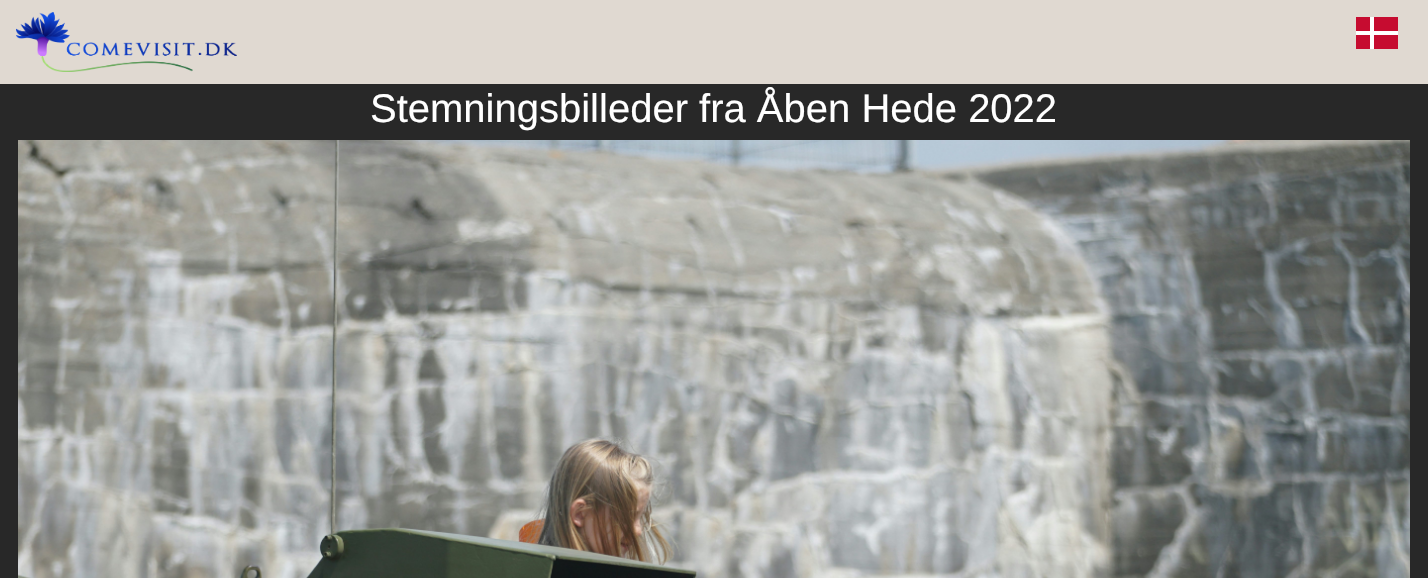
void draw(SkCanvas* canvas) {
	SkPaint fill;
	fill.setAntiAlias(true);
	auto makeFont = [&](const char* family, int weight, float size, bool italic = false) {
		SkFontStyle style(weight, SkFontStyle::kNormal_Width,
			italic ? SkFontStyle::kItalic_Slant : SkFontStyle::kUpright_Slant);
		SkFont result(fontMgr->matchFamilyStyle(family, style), size);
		result.setSubpixel(true);
		return result;
	};
	auto text = [&](const char* s, float x, float y, const SkFont& font) {
		canvas->drawString(s, x, y, font, fill);
	};
	auto box = [&](float l, float t, float r, float b) {
		canvas->drawRect(SkRect::MakeLTRB(l, t, r, b), fill);
	};
	auto picture = [&](const char* path, float l, float t, float r, float b) {
		auto image = SkImages::DeferredFromEncodedData(SkData::MakeFromFileName(path));
		canvas->drawImageRect(image, SkRect::MakeLTRB(l, t, r, b), SkSamplingOptions());
	};
	canvas->clear(0xFF282828);
	fill.setColor(0xFFE0D9D1);
	box(0, 0, 1428, 84);
	picture("image0.png", 16, 12, 237, 72);
	fill.setColor(0xFFC60C30);
	box(1356, 17, 1398, 49);
	fill.setColor(0xFFFFFFFF);
	canvas->drawPath(SkPathBuilder().moveTo(1356, 31).lineTo(1370, 31).lineTo(1370, 17).lineTo(1374, 17).lineTo(1374, 31).lineTo(1398, 31).lineTo(1398, 35).lineTo(1374, 35).lineTo(1374, 49).lineTo(1370, 49).lineTo(1370, 35).lineTo(1356, 35).close().detach(), fill);
	picture("image1.png", 18, 140, 1410, 578);
	auto font1 = makeFont("Liberation Sans", 400, 40);
	text("Stemningsbilleder fra Åben Hede 2022", 370, 122, font1);
}
